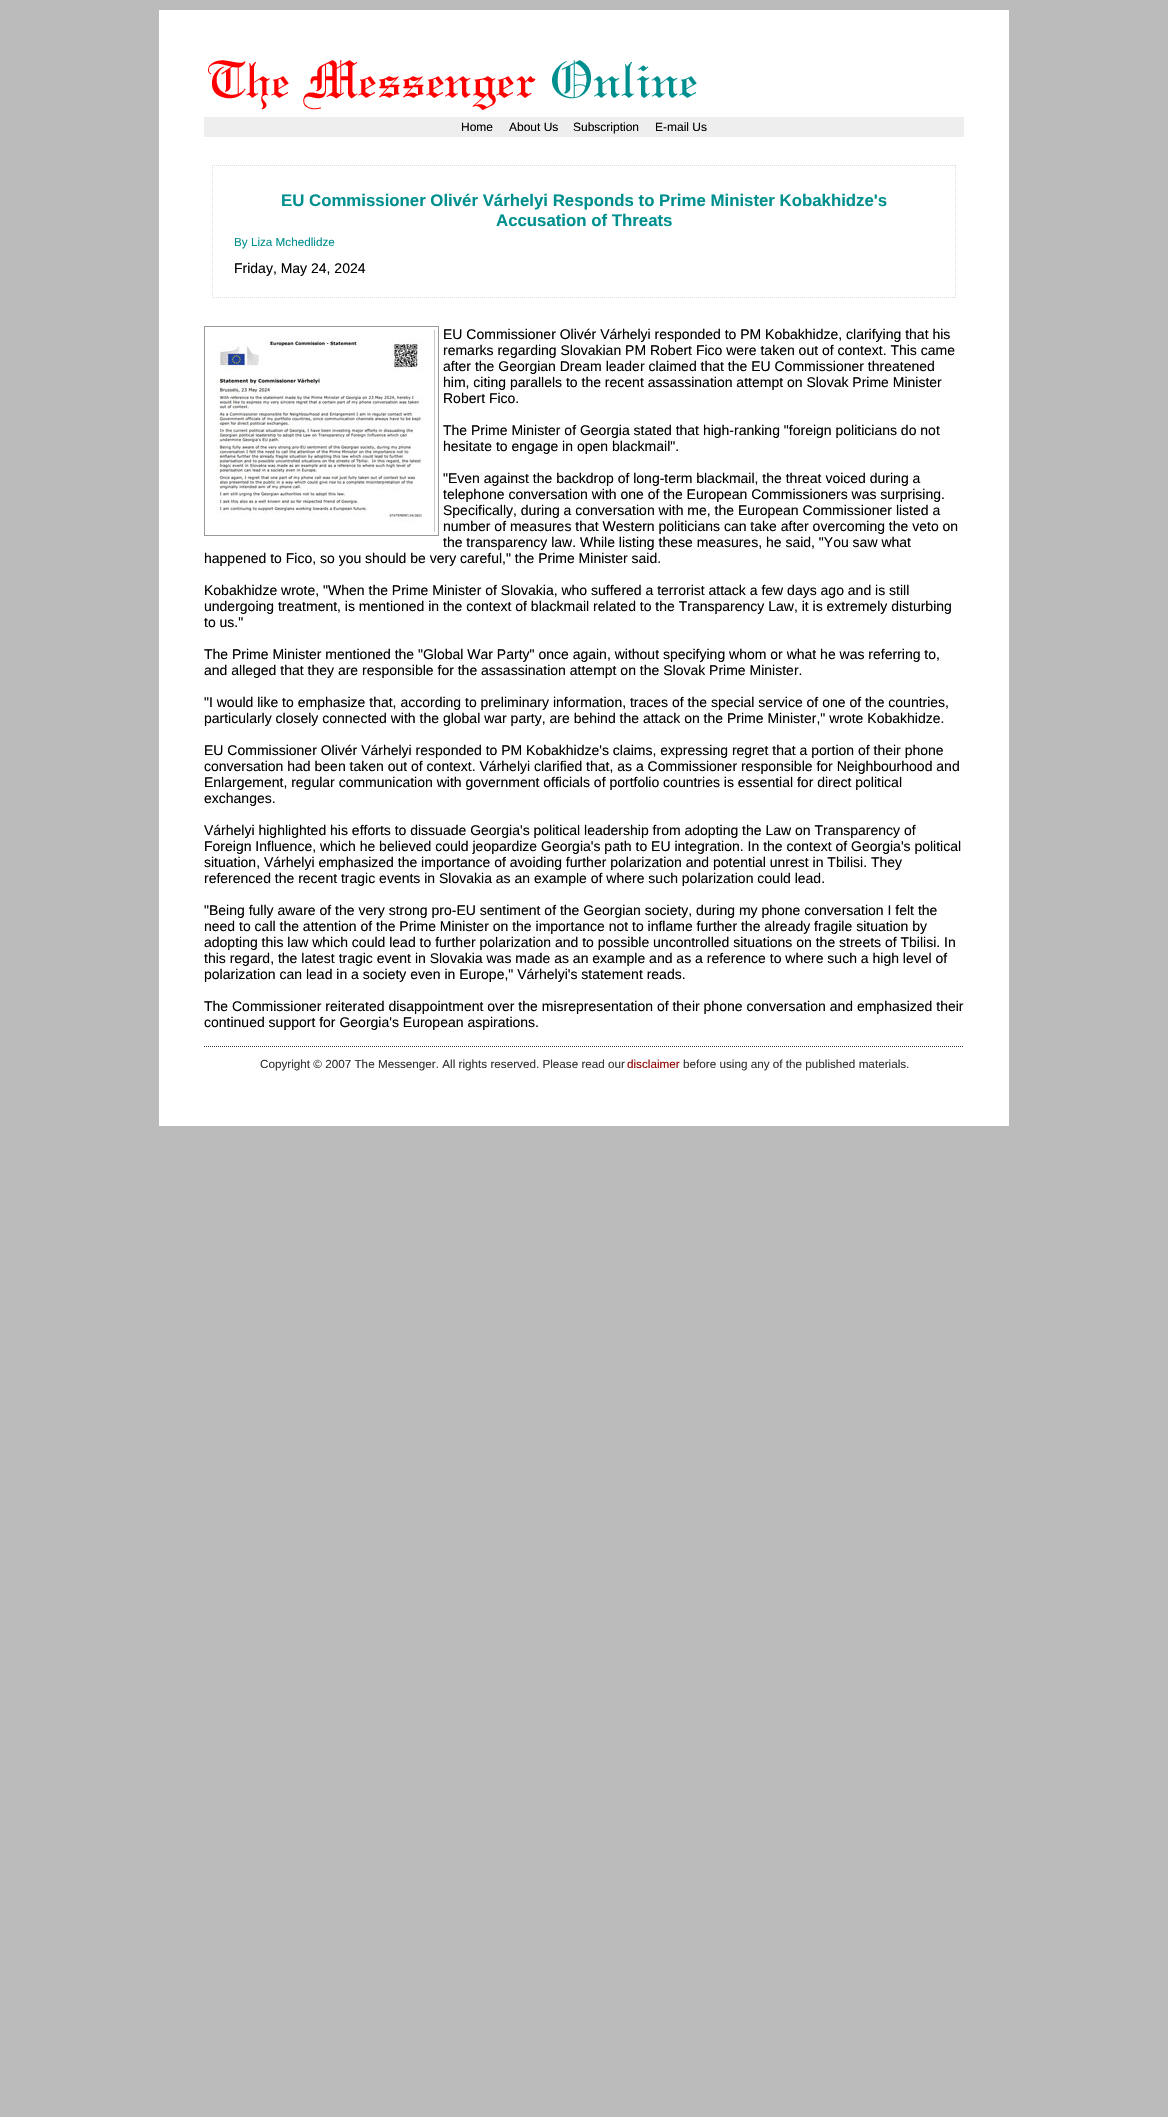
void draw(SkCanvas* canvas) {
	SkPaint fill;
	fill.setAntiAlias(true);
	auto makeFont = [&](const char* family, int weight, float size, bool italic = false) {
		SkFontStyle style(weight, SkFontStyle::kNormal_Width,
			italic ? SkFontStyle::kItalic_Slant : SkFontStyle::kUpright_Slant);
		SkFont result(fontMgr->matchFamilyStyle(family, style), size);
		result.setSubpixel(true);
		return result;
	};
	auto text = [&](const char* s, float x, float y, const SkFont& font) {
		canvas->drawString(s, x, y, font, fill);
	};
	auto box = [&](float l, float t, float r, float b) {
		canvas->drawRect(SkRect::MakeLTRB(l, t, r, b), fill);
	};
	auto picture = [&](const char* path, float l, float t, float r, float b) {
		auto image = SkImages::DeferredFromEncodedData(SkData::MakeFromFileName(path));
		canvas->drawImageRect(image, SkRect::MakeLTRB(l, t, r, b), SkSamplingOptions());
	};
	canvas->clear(0xFFBBBBBB);
	fill.setColor(0xFFFFFFFF);
	box(159, 10, 1009, 1126);
	picture("image0.png", 208, 60, 697, 110);
	fill.setColor(0xFFEEEEEE);
	box(204, 117, 964, 137);
	fill.setStyle(SkPaint::kStroke_Style);
	fill.setStrokeWidth(1);
	fill.setColor(0xFFDDDDDD);
	fill.setPathEffect(SkDashPathEffect::Make({{1, 1}}, 0));
	canvas->drawPath(SkPathBuilder().moveTo(212, 165.5f).lineTo(956, 165.5f).detach(), fill);
	fill.setPathEffect(nullptr);
	fill.setPathEffect(SkDashPathEffect::Make({{1, 1}}, 0));
	canvas->drawPath(SkPathBuilder().moveTo(955.5f, 165).lineTo(955.5f, 298).detach(), fill);
	fill.setPathEffect(nullptr);
	fill.setPathEffect(SkDashPathEffect::Make({{1, 1}}, 0));
	canvas->drawPath(SkPathBuilder().moveTo(212, 297.5f).lineTo(956, 297.5f).detach(), fill);
	fill.setPathEffect(nullptr);
	fill.setPathEffect(SkDashPathEffect::Make({{1, 1}}, 0));
	canvas->drawPath(SkPathBuilder().moveTo(212.5f, 165).lineTo(212.5f, 298).detach(), fill);
	fill.setPathEffect(nullptr);
	fill.setColor(0xFF999999);
	canvas->drawRect(SkRect::MakeLTRB(204.5f, 326.5f, 438.5f, 535.5f), fill);
	picture("image1.png", 216, 330, 435, 532);
	fill.setColor(0xFF333333);
	fill.setPathEffect(SkDashPathEffect::Make({{1, 1}}, 0));
	canvas->drawPath(SkPathBuilder().moveTo(204, 1046.5f).lineTo(964, 1046.5f).detach(), fill);
	fill.setPathEffect(nullptr);
	auto font1 = makeFont("Liberation Sans", 400, 12);
	fill.setStyle(SkPaint::kFill_Style);
	fill.setColor(0xFF000000);
	text("Home", 461, 131, font1);
	text("About Us", 509, 131, font1);
	text("Subscription", 573, 131, font1);
	text("E-mail Us", 655, 131, font1);
	auto font2 = makeFont("Liberation Sans", 700, 16.8f);
	fill.setColor(0xFF008F8F);
	text("EU Commissioner Olivér Várhelyi Responds to Prime Minister Kobakhidze's", 281, 206, font2);
	text("Accusation of Threats", 496, 226, font2);
	auto font3 = makeFont("Liberation Sans", 400, 11.7f);
	text("By Liza Mchedlidze", 234, 246, font3);
	auto font4 = makeFont("Liberation Sans", 400, 14);
	fill.setColor(0xFF000000);
	text("Friday, May 24, 2024", 234, 273, font4);
	text("EU Commissioner Olivér Várhelyi responded to PM Kobakhidze, clarifying that his", 443, 339, font4);
	text("remarks regarding Slovakian PM Robert Fico were taken out of context. This came", 443, 355, font4);
	text("after the Georgian Dream leader claimed that the EU Commissioner threatened", 443, 371, font4);
	text("him, citing parallels to the recent assassination attempt on Slovak Prime Minister", 443, 387, font4);
	text("Robert Fico.", 443, 403, font4);
	text("The Prime Minister of Georgia stated that high-ranking \"foreign politicians do not", 443, 435, font4);
	text("hesitate to engage in open blackmail\".", 443, 451, font4);
	text("\"Even against the backdrop of long-term blackmail, the threat voiced during a", 443, 483, font4);
	text("telephone conversation with one of the European Commissioners was surprising.", 443, 499, font4);
	text("Specifically, during a conversation with me, the European Commissioner listed a", 443, 515, font4);
	text("number of measures that Western politicians can take after overcoming the veto on", 443, 531, font4);
	text("the transparency law. While listing these measures, he said, \"You saw what", 443, 547, font4);
	text("happened to Fico, so you should be very careful,\" the Prime Minister said.", 204, 563, font4);
	text("Kobakhidze wrote, \"When the Prime Minister of Slovakia, who suffered a terrorist attack a few days ago and is still", 204, 595, font4);
	text("undergoing treatment, is mentioned in the context of blackmail related to the Transparency Law, it is extremely disturbing", 204, 611, font4);
	text("to us.\"", 204, 627, font4);
	text("The Prime Minister mentioned the \"Global War Party\" once again, without specifying whom or what he was referring to,", 204, 659, font4);
	text("and alleged that they are responsible for the assassination attempt on the Slovak Prime Minister.", 204, 675, font4);
	text("\"I would like to emphasize that, according to preliminary information, traces of the special service of one of the countries,", 204, 707, font4);
	text("particularly closely connected with the global war party, are behind the attack on the Prime Minister,\" wrote Kobakhidze.", 204, 723, font4);
	text("EU Commissioner Olivér Várhelyi responded to PM Kobakhidze's claims, expressing regret that a portion of their phone", 204, 755, font4);
	text("conversation had been taken out of context. Várhelyi clarified that, as a Commissioner responsible for Neighbourhood and", 204, 771, font4);
	text("Enlargement, regular communication with government officials of portfolio countries is essential for direct political", 204, 787, font4);
	text("exchanges.", 204, 803, font4);
	text("Várhelyi highlighted his efforts to dissuade Georgia's political leadership from adopting the Law on Transparency of", 204, 835, font4);
	text("Foreign Influence, which he believed could jeopardize Georgia's path to EU integration. In the context of Georgia's political", 204, 851, font4);
	text("situation, Várhelyi emphasized the importance of avoiding further polarization and potential unrest in Tbilisi. They", 204, 867, font4);
	text("referenced the recent tragic events in Slovakia as an example of where such polarization could lead.", 204, 883, font4);
	text("\"Being fully aware of the very strong pro-EU sentiment of the Georgian society, during my phone conversation I felt the", 204, 915, font4);
	text("need to call the attention of the Prime Minister on the importance not to inflame further the already fragile situation by", 204, 931, font4);
	text("adopting this law which could lead to further polarization and to possible uncontrolled situations on the streets of Tbilisi. In", 204, 947, font4);
	text("this regard, the latest tragic event in Slovakia was made as an example and as a reference to where such a high level of", 204, 963, font4);
	text("polarization can lead in a society even in Europe,\" Várhelyi's statement reads.", 204, 979, font4);
	text("The Commissioner reiterated disappointment over the misrepresentation of their phone conversation and emphasized their", 204, 1011, font4);
	text("continued support for Georgia's European aspirations.", 204, 1027, font4);
	fill.setColor(0xFF333333);
	text("Copyright © 2007 The Messenger. All rights reserved. Please read our", 260, 1068, font3);
	fill.setColor(0xFF8F0000);
	text("disclaimer", 627, 1068, font3);
	fill.setColor(0xFF333333);
	text("before using any of the published materials.", 683, 1068, font3);
}
